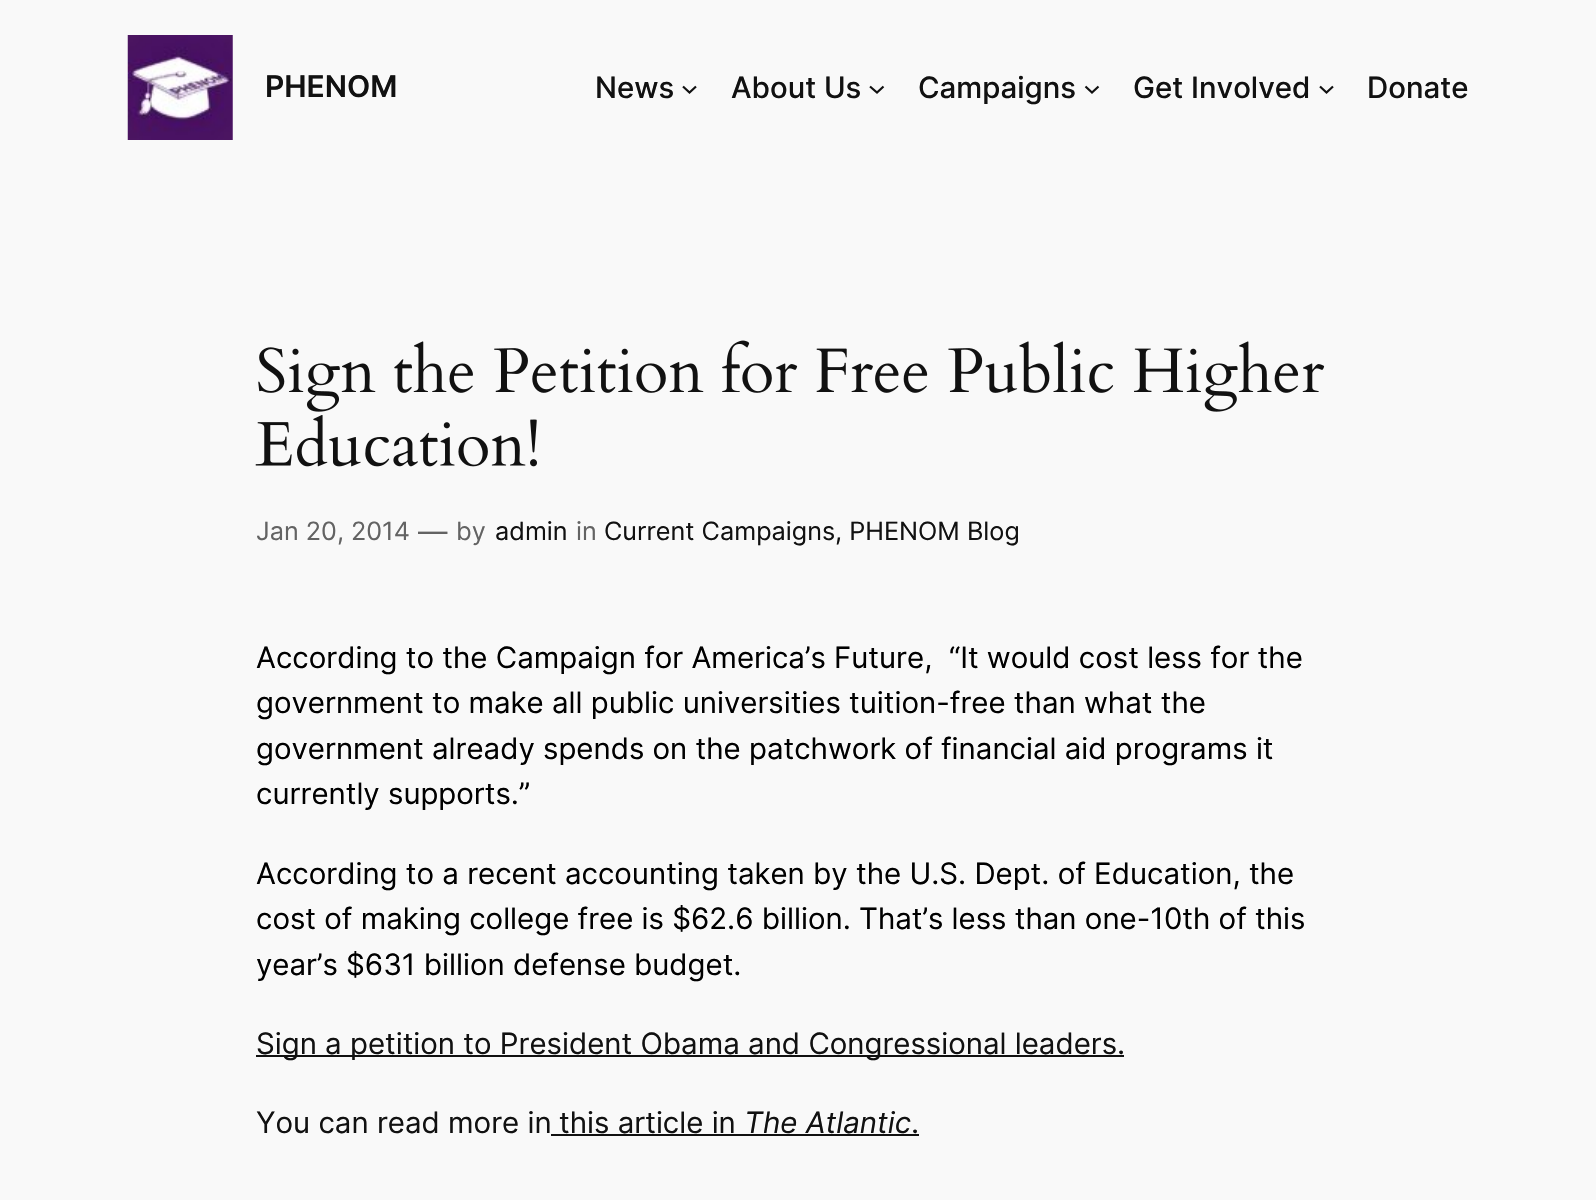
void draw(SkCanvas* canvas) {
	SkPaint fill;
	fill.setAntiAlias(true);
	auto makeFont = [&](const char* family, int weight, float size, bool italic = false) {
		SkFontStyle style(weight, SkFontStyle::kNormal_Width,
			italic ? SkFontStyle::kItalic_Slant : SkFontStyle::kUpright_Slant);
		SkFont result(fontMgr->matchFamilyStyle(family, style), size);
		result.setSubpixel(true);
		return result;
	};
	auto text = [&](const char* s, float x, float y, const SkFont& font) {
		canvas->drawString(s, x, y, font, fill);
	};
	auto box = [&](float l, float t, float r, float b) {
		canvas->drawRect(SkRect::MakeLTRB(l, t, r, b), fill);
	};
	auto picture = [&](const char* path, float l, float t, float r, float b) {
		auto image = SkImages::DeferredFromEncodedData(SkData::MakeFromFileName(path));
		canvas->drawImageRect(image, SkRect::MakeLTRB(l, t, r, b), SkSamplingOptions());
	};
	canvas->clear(0xFFF9F9F9);
	picture("image0.png", 127, 35, 233, 140);
	fill.setStyle(SkPaint::kStroke_Style);
	fill.setStrokeWidth(2.2f);
	fill.setColor(0xFF111111);
	canvas->drawPath(SkPathBuilder().moveTo(683, 86.5f).lineTo(689.5f, 92.5f).lineTo(696, 86.5f).detach(), fill);
	canvas->drawPath(SkPathBuilder().moveTo(870, 86.5f).lineTo(877, 92.5f).lineTo(883.5f, 86.5f).detach(), fill);
	canvas->drawPath(SkPathBuilder().moveTo(1085.5f, 86.5f).lineTo(1092, 92.5f).lineTo(1098.5f, 86.5f).detach(), fill);
	canvas->drawPath(SkPathBuilder().moveTo(1320, 86.5f).lineTo(1326.5f, 92.5f).lineTo(1333, 86.5f).detach(), fill);
	picture("image1.png", 258, 340, 1325, 412);
	picture("image2.png", 255, 415, 537, 467);
	fill.setStyle(SkPaint::kFill_Style);
	box(256, 1055, 1124, 1057);
	box(551, 1134, 919, 1136);
	auto font1 = makeFont("Inter", 600, 30);
	text("PHENOM", 265, 97, font1);
	auto font2 = makeFont("Inter", 500, 29.4f);
	text("News", 595, 98, font2);
	text("About Us", 731, 98, font2);
	text("Campaigns", 918, 98, font2);
	text("Get Involved", 1133, 98, font2);
	text("Donate", 1367, 98, font2);
	auto font3 = makeFont("Inter", 400, 25.25f);
	fill.setColor(0xFF636363);
	text("Jan 20, 2014", 256, 540, font3);
	auto font4 = makeFont("Inter", 400, 29.4f);
	text("—", 418, 542, font4);
	text("by", 456, 540, font3);
	fill.setColor(0xFF111111);
	text("admin", 495, 540, font3);
	fill.setColor(0xFF636363);
	text("in", 576, 540, font3);
	fill.setColor(0xFF111111);
	text("Current Campaigns, PHENOM Blog", 604, 540, font3);
	fill.setColor(0xFF000000);
	text("According to the Campaign for America’s Future,  “It would cost less for the", 256, 668, font4);
	text("government to make all public universities tuition-free than what the", 256, 713, font4);
	text("government already spends on the patchwork of financial aid programs it", 256, 759, font4);
	text("currently supports.”", 256, 804, font4);
	text("According to a recent accounting taken by the U.S. Dept. of Education, the", 256, 884, font4);
	text("cost of making college free is $62.6 billion. That’s less than one-10th of this", 256, 929, font4);
	text("year’s $631 billion defense budget.", 256, 975, font4);
	fill.setColor(0xFF111111);
	text("Sign a petition to President Obama and Congressional leaders.", 256, 1054, font4);
	text("You can read more in", 256, 1133, font4);
	text("this article in", 559, 1133, font4);
	auto font5 = makeFont("Inter", 400, 29.4f, true);
	text("The Atlantic", 744, 1133, font5);
	text(".", 911, 1133, font4);
}
